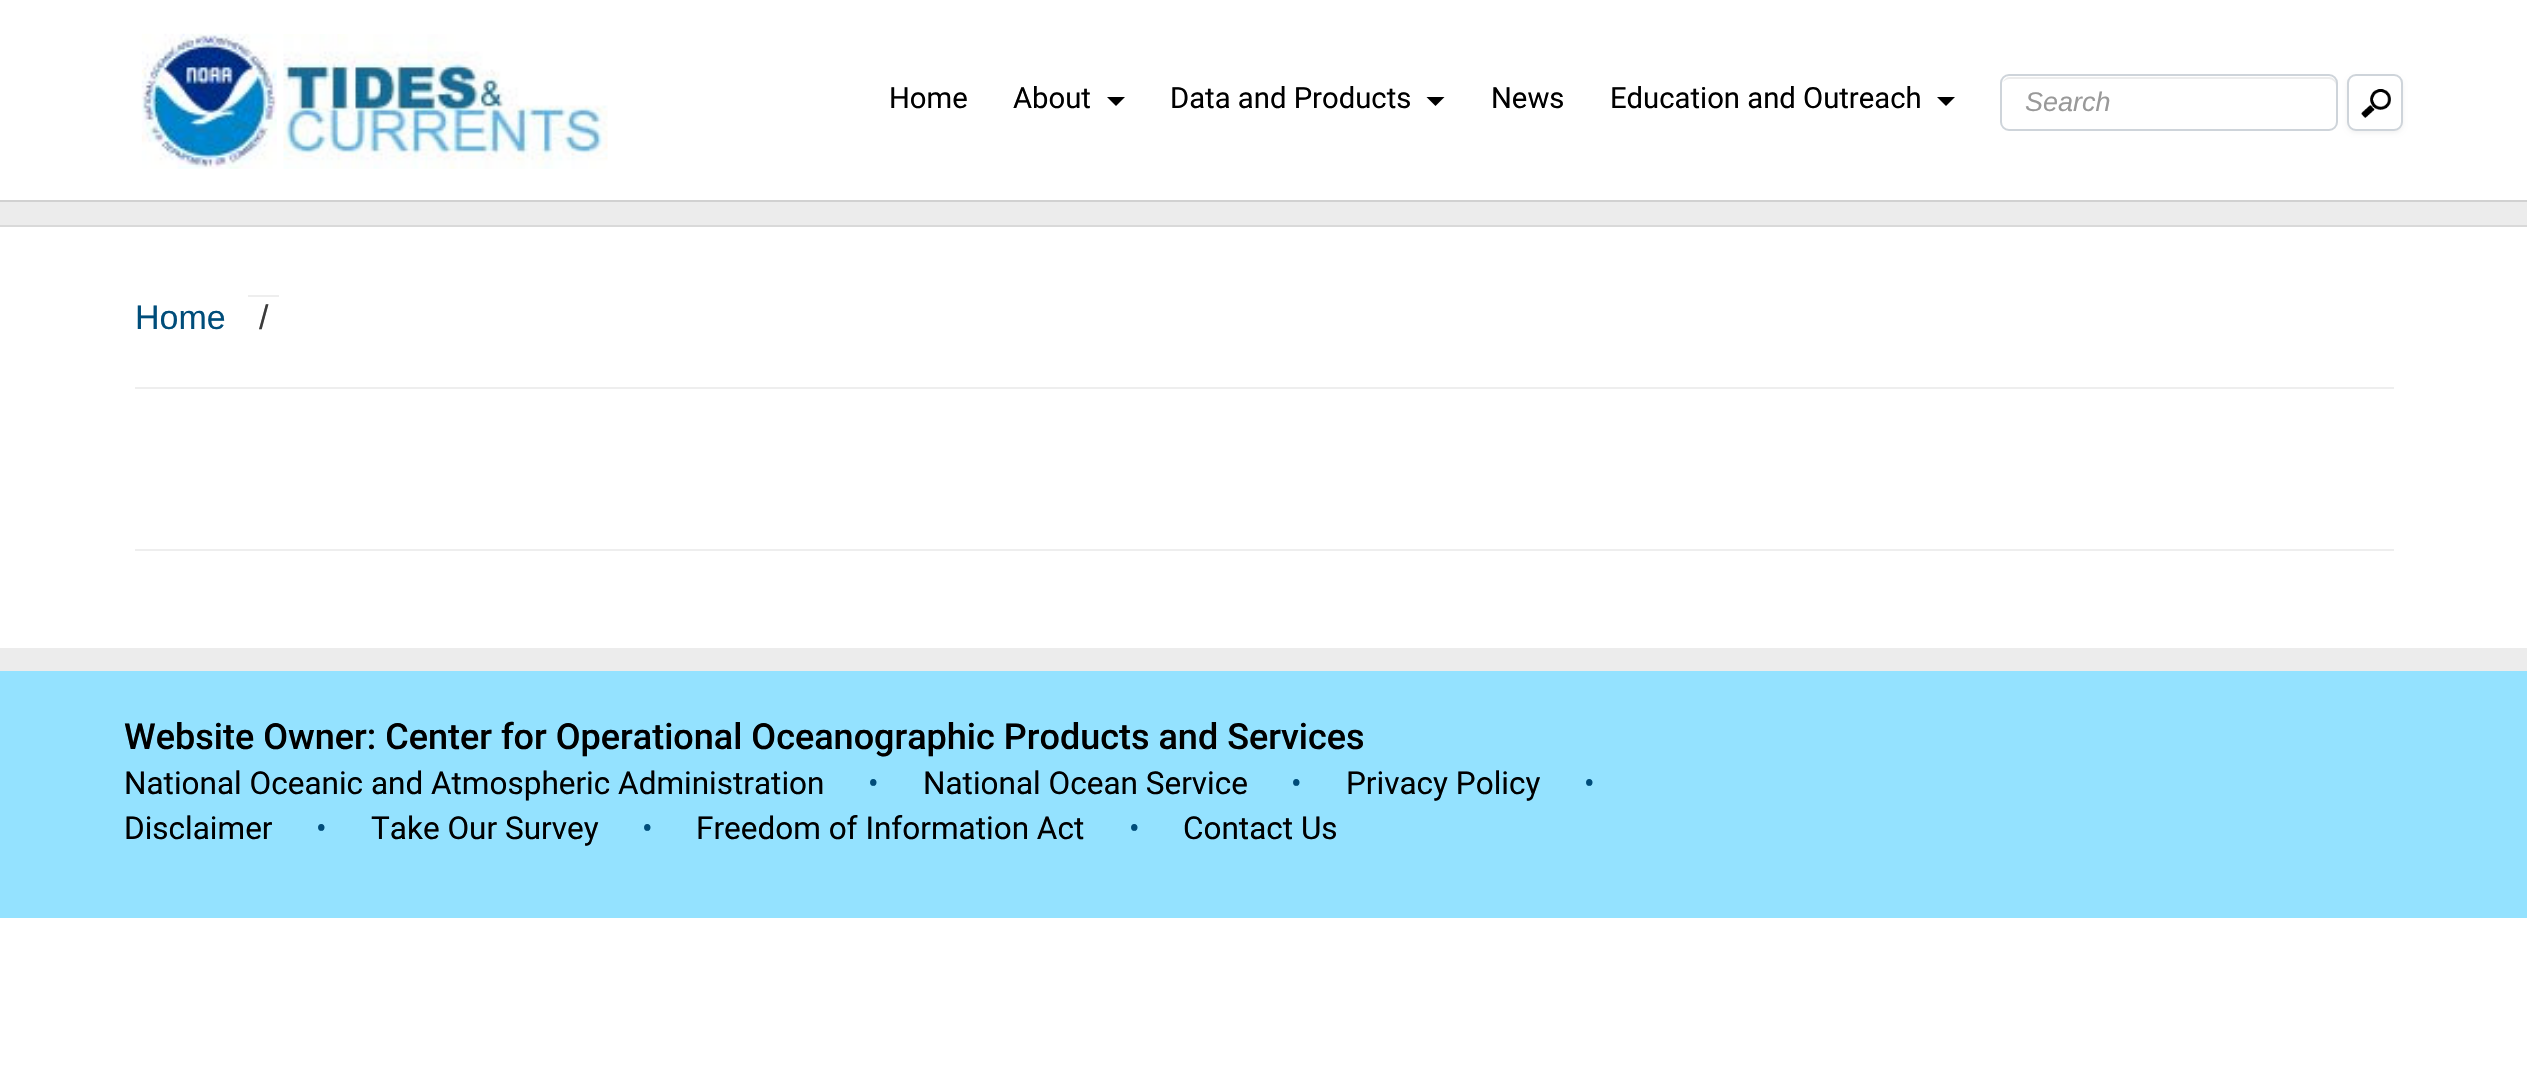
void draw(SkCanvas* canvas) {
	SkPaint fill;
	fill.setAntiAlias(true);
	auto makeFont = [&](const char* family, int weight, float size, bool italic = false) {
		SkFontStyle style(weight, SkFontStyle::kNormal_Width,
			italic ? SkFontStyle::kItalic_Slant : SkFontStyle::kUpright_Slant);
		SkFont result(fontMgr->matchFamilyStyle(family, style), size);
		result.setSubpixel(true);
		return result;
	};
	auto text = [&](const char* s, float x, float y, const SkFont& font) {
		canvas->drawString(s, x, y, font, fill);
	};
	auto box = [&](float l, float t, float r, float b) {
		canvas->drawRect(SkRect::MakeLTRB(l, t, r, b), fill);
	};
	auto picture = [&](const char* path, float l, float t, float r, float b) {
		auto image = SkImages::DeferredFromEncodedData(SkData::MakeFromFileName(path));
		canvas->drawImageRect(image, SkRect::MakeLTRB(l, t, r, b), SkSamplingOptions());
	};
	canvas->clear(0xFFFFFFFF);
	picture("image0.png", 141, 33, 277, 169);
	picture("image1.png", 283, 34, 608, 169);
	fill.setColor(0xFF000000);
	canvas->drawPath(SkPathBuilder().moveTo(1107, 97).lineTo(1125, 97).lineTo(1116, 106).close().detach(), fill);
	canvas->drawPath(SkPathBuilder().moveTo(1426.5f, 97).lineTo(1444.5f, 97).lineTo(1435.5f, 106).close().detach(), fill);
	canvas->drawPath(SkPathBuilder().moveTo(1937, 97).lineTo(1955, 97).lineTo(1946, 106).close().detach(), fill);
	fill.setColor(0xFFECECEC);
	canvas->drawPath(SkPathBuilder().moveTo(2009, 79).lineTo(2329, 79).cubicTo(2332, 79, 2336, 82, 2336, 86).lineTo(2336, 84).cubicTo(2336, 80, 2333, 77, 2329, 77).lineTo(2010, 77).cubicTo(2007, 77, 2004, 79, 2003, 82).cubicTo(2005, 80, 2007, 79, 2009, 79).close().detach(), fill);
	fill.setStyle(SkPaint::kStroke_Style);
	fill.setStrokeWidth(2);
	fill.setColor(0xFFCED4DA);
	canvas->drawRoundRect(SkRect::MakeLTRB(2001, 75, 2337, 130), 8, 8, fill);
	fill.setStyle(SkPaint::kFill_Style);
	fill.setColor(0x0D000000);
	fill.setMaskFilter(SkMaskFilter::MakeBlur(kNormal_SkBlurStyle, 2));
	canvas->drawRoundRect(SkRect::MakeLTRB(2347, 77, 2403, 133), 9, 9, fill);
	fill.setMaskFilter(nullptr);
	fill.setColor(0xFFFFFFFF);
	canvas->drawRoundRect(SkRect::MakeLTRB(2348, 75, 2402, 130), 8, 8, fill);
	fill.setStyle(SkPaint::kStroke_Style);
	fill.setColor(0xFFCED4DA);
	canvas->drawRoundRect(SkRect::MakeLTRB(2348, 75, 2402, 130), 8, 8, fill);
	picture("image2.png", 2361, 89, 2391, 118);
	fill.setStyle(SkPaint::kFill_Style);
	fill.setColor(0xFFECECEC);
	box(0, 202, 2527, 225);
	fill.setColor(0xFFD1D1D1);
	box(0, 200, 2527, 202);
	fill.setColor(0xFFD9D9D9);
	box(0, 225, 2527, 227);
	fill.setColor(0xFFEEEEEE);
	box(248, 295, 279, 297);
	box(135, 387, 2394, 389);
	box(135, 549, 2394, 551);
	fill.setColor(0xFF94E2FF);
	box(0, 671, 2527, 918);
	fill.setColor(0xFFECECEC);
	box(0, 648, 2527, 671);
	auto font1 = makeFont("Roboto", 400, 29.25f);
	fill.setColor(0xFF000000);
	text("Home", 889, 108, font1);
	text("About", 1013, 108, font1);
	text("Data and Products", 1170, 108, font1);
	text("News", 1491, 108, font1);
	text("Education and Outreach", 1610, 108, font1);
	auto font2 = makeFont("Liberation Sans", 400, 27, true);
	fill.setColor(0xFF999999);
	text("Search", 2025, 111, font2);
	auto font3 = makeFont("Liberation Sans", 400, 34);
	fill.setColor(0xFF004D7A);
	text("Home", 135, 329, font3);
	fill.setColor(0xFF3B3B3B);
	text("/", 259, 329, font3);
	auto font4 = makeFont("Roboto", 500, 36);
	fill.setColor(0xFF000000);
	text("Website Owner: Center for Operational Oceanographic Products and Services", 124, 749, font4);
	auto font5 = makeFont("Roboto", 400, 31.5f);
	text("National Oceanic and Atmospheric Administration", 124, 794, font5);
	fill.setColor(0xFF004D7A);
	text("•", 868, 794, font5);
	fill.setColor(0xFF000000);
	text("National Ocean Service", 923, 794, font5);
	fill.setColor(0xFF004D7A);
	text("•", 1291, 794, font5);
	fill.setColor(0xFF000000);
	text("Privacy Policy", 1346, 794, font5);
	fill.setColor(0xFF004D7A);
	text("•", 1584, 794, font5);
	fill.setColor(0xFF000000);
	text("Disclaimer", 124, 839, font5);
	fill.setColor(0xFF004D7A);
	text("•", 316, 839, font5);
	fill.setColor(0xFF000000);
	text("Take Our Survey", 371, 839, font5);
	fill.setColor(0xFF004D7A);
	text("•", 642, 839, font5);
	fill.setColor(0xFF000000);
	text("Freedom of Information Act", 696, 839, font5);
	fill.setColor(0xFF004D7A);
	text("•", 1129, 839, font5);
	fill.setColor(0xFF000000);
	text("Contact Us", 1183, 839, font5);
}
